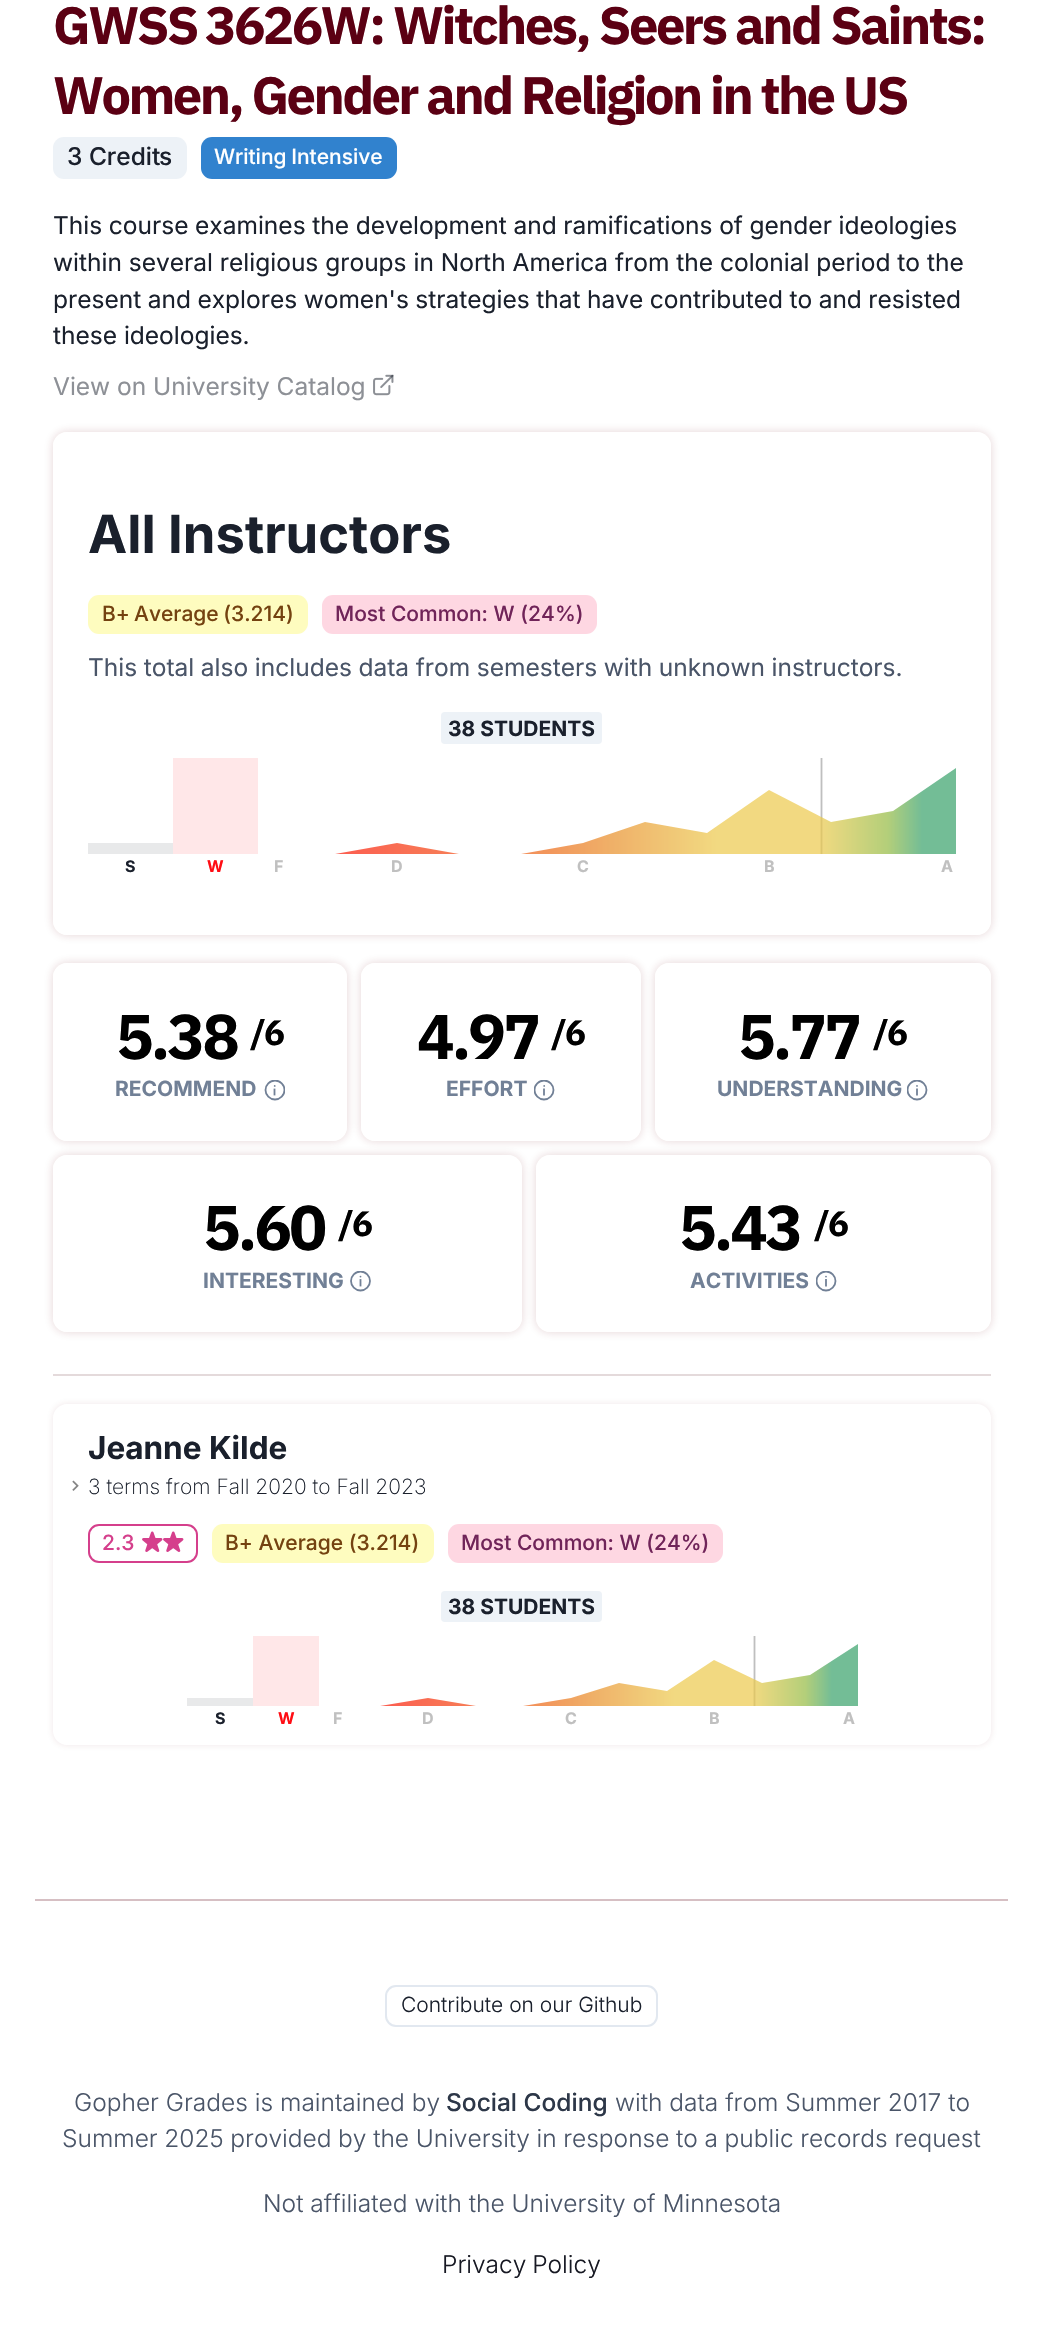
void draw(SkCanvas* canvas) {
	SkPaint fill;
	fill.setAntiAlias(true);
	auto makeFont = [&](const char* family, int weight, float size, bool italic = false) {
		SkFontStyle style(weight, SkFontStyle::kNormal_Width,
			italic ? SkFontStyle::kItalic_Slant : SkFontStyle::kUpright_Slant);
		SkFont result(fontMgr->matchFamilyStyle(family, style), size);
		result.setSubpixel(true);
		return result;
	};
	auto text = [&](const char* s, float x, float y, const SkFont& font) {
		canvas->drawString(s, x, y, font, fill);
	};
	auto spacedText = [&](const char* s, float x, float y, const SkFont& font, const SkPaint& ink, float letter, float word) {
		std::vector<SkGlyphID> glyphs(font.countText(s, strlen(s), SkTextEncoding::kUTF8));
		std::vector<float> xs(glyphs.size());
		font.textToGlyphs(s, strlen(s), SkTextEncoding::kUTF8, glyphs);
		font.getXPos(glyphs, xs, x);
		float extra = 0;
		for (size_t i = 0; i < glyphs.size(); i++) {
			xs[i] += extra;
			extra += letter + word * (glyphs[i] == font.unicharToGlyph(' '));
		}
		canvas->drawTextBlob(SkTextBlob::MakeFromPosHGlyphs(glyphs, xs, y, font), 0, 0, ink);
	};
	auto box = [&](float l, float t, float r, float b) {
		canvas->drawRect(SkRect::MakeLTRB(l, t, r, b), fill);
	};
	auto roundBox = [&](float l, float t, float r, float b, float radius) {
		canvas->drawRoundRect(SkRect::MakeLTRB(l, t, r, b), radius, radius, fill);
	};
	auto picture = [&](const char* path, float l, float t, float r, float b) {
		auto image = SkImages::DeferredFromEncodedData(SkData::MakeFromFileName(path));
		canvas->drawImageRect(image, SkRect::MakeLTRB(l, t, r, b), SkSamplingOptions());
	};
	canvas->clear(0xFFFFFFFF);
	fill.setColor(0xFFEDF2F7);
	roundBox(53, 137, 187, 179, 11);
	fill.setColor(0xFF3182CE);
	roundBox(201, 137, 397, 179, 11);
	picture("image0.png", 373, 374, 394, 396);
	canvas->save();
	canvas->clipPath(SkPathBuilder(SkPathFillType::kEvenOdd).moveTo(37, 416).lineTo(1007, 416).lineTo(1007, 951).lineTo(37, 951).close().moveTo(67, 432).lineTo(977, 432).cubicTo(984.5f, 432, 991, 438.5f, 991, 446).lineTo(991, 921).cubicTo(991, 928.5f, 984.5f, 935, 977, 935).lineTo(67, 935).cubicTo(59.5f, 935, 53, 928.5f, 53, 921).lineTo(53, 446).cubicTo(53, 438.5f, 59.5f, 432, 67, 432).close().detach(), true);
	fill.setColor(0x2E6F131D);
	fill.setMaskFilter(SkMaskFilter::MakeBlur(kNormal_SkBlurStyle, 5));
	canvas->drawRoundRect(SkRect::MakeLTRB(53, 432, 991, 935), 14, 14, fill);
	fill.setMaskFilter(nullptr);
	canvas->restore();
	fill.setColor(0xD9FFFFFF);
	roundBox(53, 432, 991, 935, 14);
	fill.setColor(0xFFFEFCBF);
	roundBox(88, 595, 308, 634, 11);
	fill.setColor(0xFFFED7E2);
	roundBox(322, 595, 597, 634, 11);
	fill.setColor(0xFFEDF2F7);
	roundBox(441, 712, 602, 744, 4);
	fill.setColor(0xFFE8E9EA);
	box(88, 843, 173, 854);
	fill.setColor(0xFFFFE7E8);
	box(173, 758, 258, 854);
	fill.setStyle(SkPaint::kStroke_Style);
	fill.setStrokeWidth(1.8f);
	fill.setColor(0xFFBFBFBF);
	canvas->drawPath(SkPathBuilder().moveTo(821.5f, 758).lineTo(821.5f, 854).detach(), fill);
	fill.setStyle(SkPaint::kFill_Style);
	{
		const SkColor colors[] = {0xB3FF0000, 0xB3EC6C17, 0xB3E89029, 0xB3ECC94B, 0xB3ECC94B, 0xB3C0C246, 0xB393BA41, 0xB338A169, 0xB338A169};
		const float stops[] = {0, 0.41f, 0.5f, 0.65f, 0.8f, 0.85f, 0.9f, 0.95f, 1};
		const SkPoint ends[] = {{273, 811}, {956, 811}};
		fill.setShader(SkGradientShader::MakeLinear(ends, colors, stops, 9, SkTileMode::kClamp));
		fill.setAlpha(255);
	}
	canvas->drawPath(SkPathBuilder().moveTo(273, 854).lineTo(335, 854).lineTo(397, 843).lineTo(459, 854).lineTo(521, 854).lineTo(583, 843).lineTo(645, 822).lineTo(707, 833).lineTo(769, 790).lineTo(831, 822).lineTo(893, 811).lineTo(956, 768).lineTo(956, 854).close().detach(), fill);
	canvas->save();
	canvas->clipPath(SkPathBuilder(SkPathFillType::kEvenOdd).moveTo(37, 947).lineTo(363, 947).lineTo(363, 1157).lineTo(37, 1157).close().moveTo(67, 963).lineTo(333, 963).cubicTo(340.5f, 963, 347, 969.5f, 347, 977).lineTo(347, 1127).cubicTo(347, 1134.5f, 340.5f, 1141, 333, 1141).lineTo(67, 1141).cubicTo(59.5f, 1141, 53, 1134.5f, 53, 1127).lineTo(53, 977).cubicTo(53, 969.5f, 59.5f, 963, 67, 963).close().detach(), true);
	fill.setShader(nullptr);
	fill.setColor(0x2E6F131D);
	fill.setMaskFilter(SkMaskFilter::MakeBlur(kNormal_SkBlurStyle, 5));
	canvas->drawRoundRect(SkRect::MakeLTRB(53, 963, 347, 1141), 14, 14, fill);
	fill.setMaskFilter(nullptr);
	canvas->restore();
	fill.setColor(0xD9FFFFFF);
	roundBox(53, 963, 347, 1141, 14);
	canvas->save();
	canvas->clipRect(SkRect::MakeLTRB(264, 1080, 285, 1101));
	fill.setStyle(SkPaint::kStroke_Style);
	fill.setColor(0xFF718096);
	canvas->drawCircle(275, 1090, 9.5f, fill);
	canvas->restore();
	fill.setStrokeCap(SkPaint::kSquare_Cap);
	canvas->drawPath(SkPathBuilder().moveTo(274.5f, 1089.5f).lineTo(274.5f, 1094.5f).detach(), fill);
	fill.setStyle(SkPaint::kFill_Style);
	canvas->drawCircle(274.7f, 1085.9f, 0.9f, fill);
	canvas->save();
	canvas->clipPath(SkPathBuilder(SkPathFillType::kEvenOdd).moveTo(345, 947).lineTo(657, 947).lineTo(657, 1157).lineTo(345, 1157).close().moveTo(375, 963).lineTo(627, 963).cubicTo(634.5f, 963, 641, 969.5f, 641, 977).lineTo(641, 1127).cubicTo(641, 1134.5f, 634.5f, 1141, 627, 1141).lineTo(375, 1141).cubicTo(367.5f, 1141, 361, 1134.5f, 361, 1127).lineTo(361, 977).cubicTo(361, 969.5f, 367.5f, 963, 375, 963).close().detach(), true);
	fill.setColor(0x2E6F131D);
	fill.setMaskFilter(SkMaskFilter::MakeBlur(kNormal_SkBlurStyle, 5));
	canvas->drawRoundRect(SkRect::MakeLTRB(361, 963, 641, 1141), 14, 14, fill);
	fill.setMaskFilter(nullptr);
	canvas->restore();
	fill.setColor(0xD9FFFFFF);
	roundBox(361, 963, 641, 1141, 14);
	canvas->save();
	canvas->clipRect(SkRect::MakeLTRB(534, 1080, 555, 1101));
	fill.setStyle(SkPaint::kStroke_Style);
	fill.setStrokeCap(SkPaint::kButt_Cap);
	fill.setColor(0xFF718096);
	canvas->drawCircle(544, 1090, 9.5f, fill);
	canvas->restore();
	fill.setStrokeCap(SkPaint::kSquare_Cap);
	canvas->drawPath(SkPathBuilder().moveTo(544, 1089.5f).lineTo(544, 1094.5f).detach(), fill);
	fill.setStyle(SkPaint::kFill_Style);
	canvas->drawCircle(544.2f, 1085.9f, 0.9f, fill);
	canvas->save();
	canvas->clipPath(SkPathBuilder(SkPathFillType::kEvenOdd).moveTo(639, 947).lineTo(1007, 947).lineTo(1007, 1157).lineTo(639, 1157).close().moveTo(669, 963).lineTo(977, 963).cubicTo(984.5f, 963, 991, 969.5f, 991, 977).lineTo(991, 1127).cubicTo(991, 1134.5f, 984.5f, 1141, 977, 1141).lineTo(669, 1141).cubicTo(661.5f, 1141, 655, 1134.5f, 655, 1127).lineTo(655, 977).cubicTo(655, 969.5f, 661.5f, 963, 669, 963).close().detach(), true);
	fill.setColor(0x2E6F131D);
	fill.setMaskFilter(SkMaskFilter::MakeBlur(kNormal_SkBlurStyle, 5));
	canvas->drawRoundRect(SkRect::MakeLTRB(655, 963, 991, 1141), 14, 14, fill);
	fill.setMaskFilter(nullptr);
	canvas->restore();
	fill.setColor(0xD9FFFFFF);
	roundBox(655, 963, 991, 1141, 14);
	canvas->save();
	canvas->clipRect(SkRect::MakeLTRB(907, 1080, 928, 1101));
	fill.setStyle(SkPaint::kStroke_Style);
	fill.setStrokeCap(SkPaint::kButt_Cap);
	fill.setColor(0xFF718096);
	canvas->drawCircle(917, 1090, 9.5f, fill);
	canvas->restore();
	fill.setStrokeCap(SkPaint::kSquare_Cap);
	canvas->drawPath(SkPathBuilder().moveTo(917, 1089.5f).lineTo(917, 1094.5f).detach(), fill);
	fill.setStyle(SkPaint::kFill_Style);
	canvas->drawCircle(917, 1085.9f, 0.9f, fill);
	canvas->save();
	canvas->clipPath(SkPathBuilder(SkPathFillType::kEvenOdd).moveTo(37, 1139).lineTo(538, 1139).lineTo(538, 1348).lineTo(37, 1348).close().moveTo(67, 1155).lineTo(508, 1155).cubicTo(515.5f, 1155, 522, 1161.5f, 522, 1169).lineTo(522, 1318).cubicTo(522, 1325.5f, 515.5f, 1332, 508, 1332).lineTo(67, 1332).cubicTo(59.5f, 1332, 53, 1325.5f, 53, 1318).lineTo(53, 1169).cubicTo(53, 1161.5f, 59.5f, 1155, 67, 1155).close().detach(), true);
	fill.setColor(0x2E6F131D);
	fill.setMaskFilter(SkMaskFilter::MakeBlur(kNormal_SkBlurStyle, 5));
	canvas->drawRoundRect(SkRect::MakeLTRB(53, 1155, 522, 1332), 14, 14, fill);
	fill.setMaskFilter(nullptr);
	canvas->restore();
	fill.setColor(0xD9FFFFFF);
	roundBox(53, 1155, 522, 1332, 14);
	canvas->save();
	canvas->clipRect(SkRect::MakeLTRB(350, 1271, 371, 1292));
	fill.setStyle(SkPaint::kStroke_Style);
	fill.setStrokeCap(SkPaint::kButt_Cap);
	fill.setColor(0xFF718096);
	canvas->drawCircle(360.5f, 1281, 9.5f, fill);
	canvas->restore();
	fill.setStrokeCap(SkPaint::kSquare_Cap);
	canvas->drawPath(SkPathBuilder().moveTo(360.5f, 1280).lineTo(360.5f, 1285.5f).detach(), fill);
	fill.setStyle(SkPaint::kFill_Style);
	canvas->drawCircle(360.5f, 1276.6f, 0.9f, fill);
	canvas->save();
	canvas->clipPath(SkPathBuilder(SkPathFillType::kEvenOdd).moveTo(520, 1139).lineTo(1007, 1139).lineTo(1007, 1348).lineTo(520, 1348).close().moveTo(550, 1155).lineTo(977, 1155).cubicTo(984.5f, 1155, 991, 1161.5f, 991, 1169).lineTo(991, 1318).cubicTo(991, 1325.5f, 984.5f, 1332, 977, 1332).lineTo(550, 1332).cubicTo(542.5f, 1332, 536, 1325.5f, 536, 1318).lineTo(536, 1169).cubicTo(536, 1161.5f, 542.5f, 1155, 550, 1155).close().detach(), true);
	fill.setColor(0x2E6F131D);
	fill.setMaskFilter(SkMaskFilter::MakeBlur(kNormal_SkBlurStyle, 5));
	canvas->drawRoundRect(SkRect::MakeLTRB(536, 1155, 991, 1332), 14, 14, fill);
	fill.setMaskFilter(nullptr);
	canvas->restore();
	fill.setColor(0xD9FFFFFF);
	roundBox(536, 1155, 991, 1332, 14);
	canvas->save();
	canvas->clipRect(SkRect::MakeLTRB(816, 1271, 837, 1292));
	fill.setStyle(SkPaint::kStroke_Style);
	fill.setStrokeCap(SkPaint::kButt_Cap);
	fill.setColor(0xFF718096);
	canvas->drawCircle(826, 1281, 9.5f, fill);
	canvas->restore();
	fill.setStrokeCap(SkPaint::kSquare_Cap);
	canvas->drawPath(SkPathBuilder().moveTo(826, 1280).lineTo(826, 1285.5f).detach(), fill);
	fill.setStyle(SkPaint::kFill_Style);
	canvas->drawCircle(826, 1276.6f, 0.9f, fill);
	fill.setColor(0xFFE4DADB);
	box(53, 1374, 991, 1376);
	canvas->save();
	canvas->clipPath(SkPathBuilder(SkPathFillType::kEvenOdd).moveTo(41, 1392).lineTo(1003, 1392).lineTo(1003, 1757).lineTo(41, 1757).close().moveTo(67, 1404).lineTo(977, 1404).cubicTo(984.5f, 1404, 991, 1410.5f, 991, 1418).lineTo(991, 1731).cubicTo(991, 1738.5f, 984.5f, 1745, 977, 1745).lineTo(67, 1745).cubicTo(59.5f, 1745, 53, 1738.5f, 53, 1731).lineTo(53, 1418).cubicTo(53, 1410.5f, 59.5f, 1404, 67, 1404).close().detach(), true);
	fill.setColor(0x1A6F131D);
	fill.setMaskFilter(SkMaskFilter::MakeBlur(kNormal_SkBlurStyle, 3.5f));
	canvas->drawRoundRect(SkRect::MakeLTRB(53, 1404, 991, 1745), 14, 14, fill);
	fill.setMaskFilter(nullptr);
	canvas->restore();
	picture("image1.png", 72, 1480, 79, 1491);
	fill.setStyle(SkPaint::kStroke_Style);
	fill.setStrokeWidth(2);
	fill.setStrokeCap(SkPaint::kButt_Cap);
	fill.setColor(0xFFD53F8C);
	canvas->drawRoundRect(SkRect::MakeLTRB(89, 1525, 197, 1562), 10, 10, fill);
	picture("image2.png", 142, 1531, 163, 1552);
	picture("image2.png", 163, 1531, 184, 1552);
	fill.setStyle(SkPaint::kFill_Style);
	fill.setColor(0xFFFEFCBF);
	roundBox(212, 1524, 434, 1563, 11);
	fill.setColor(0xFFFED7E2);
	roundBox(448, 1524, 723, 1563, 11);
	fill.setColor(0xFFEDF2F7);
	roundBox(441, 1591, 602, 1622, 4);
	fill.setColor(0xFFE8E9EA);
	box(187, 1698, 253, 1706);
	fill.setColor(0xFFFFE7E8);
	box(253, 1636, 319, 1706);
	fill.setStyle(SkPaint::kStroke_Style);
	fill.setStrokeWidth(1.8f);
	fill.setColor(0xFFBFBFBF);
	canvas->drawPath(SkPathBuilder().moveTo(754.5f, 1636).lineTo(754.5f, 1706).detach(), fill);
	fill.setStyle(SkPaint::kFill_Style);
	{
		const SkColor colors[] = {0xB3FF0000, 0xB3EC6C17, 0xB3E89029, 0xB3ECC94B, 0xB3ECC94B, 0xB3C0C246, 0xB393BA41, 0xB338A169, 0xB338A169};
		const float stops[] = {0, 0.41f, 0.5f, 0.65f, 0.8f, 0.85f, 0.9f, 0.95f, 1};
		const SkPoint ends[] = {{333, 1675}, {858, 1675}};
		fill.setShader(SkGradientShader::MakeLinear(ends, colors, stops, 9, SkTileMode::kClamp));
		fill.setAlpha(255);
	}
	canvas->drawPath(SkPathBuilder().moveTo(332, 1706).lineTo(380, 1706).lineTo(428, 1698).lineTo(476, 1706).lineTo(523, 1706).lineTo(571, 1698).lineTo(619, 1683).lineTo(667, 1691).lineTo(714, 1660).lineTo(762, 1683).lineTo(810, 1675).lineTo(858, 1644).lineTo(858, 1706).close().detach(), fill);
	fill.setShader(nullptr);
	fill.setColor(0xFFD6BFC3);
	box(35, 1899, 1008, 1901);
	fill.setStyle(SkPaint::kStroke_Style);
	fill.setStrokeWidth(2);
	fill.setColor(0xFFE2E8F0);
	canvas->drawRoundRect(SkRect::MakeLTRB(386, 1986, 657, 2026), 10, 10, fill);
	auto font1 = makeFont("IBM Plex Sans", 700, 52.5f);
	fill.setStyle(SkPaint::kFill_Style);
	fill.setColor(0xFF5B0013);
	spacedText("GWSS", 53, 44, font1, fill, -2.6f, 0);
	spacedText("3626W:", 205, 44, font1, fill, -2.6f, 0);
	spacedText("Witches, Seers and Saints:", 393, 44, font1, fill, -2.6f, 0);
	spacedText("Women, Gender and Religion in the US", 53, 114, font1, fill, -2.6f, -0.5f);
	auto font2 = makeFont("Inter", 500, 24.5f);
	fill.setColor(0xFF1A202C);
	text("3 Credit", 67, 165, font2);
	text("s", 159, 165, font2);
	auto font3 = makeFont("Inter", 500, 21);
	fill.setColor(0xFFFFFFFF);
	spacedText("Writing Intensive", 214, 164, font3, fill, 0, -1);
	auto font4 = makeFont("Inter", 400, 24.5f);
	fill.setColor(0xFF1A202C);
	spacedText("This course examines the development and ramifications of gender ideologies", 53, 234, font4, fill, 0, -0.25f);
	text("within several religious groups in North America from the colonial period to the", 53, 271, font4);
	spacedText("present and explores women's strategies that have contributed to and resisted", 53, 308, font4, fill, 0, -0.4f);
	text("these ideologies.", 53, 344, font4);
	fill.setColor(0xFF8D9096);
	text("View on University Catalog", 53, 395, font4);
	auto font5 = makeFont("Inter", 700, 52.5f);
	fill.setColor(0xFF1A202C);
	text("All Instructors", 88, 553, font5);
	fill.setColor(0xFF744210);
	text("B+", 102, 621, font3);
	spacedText("Average (", 134, 621, font3, fill, 0, -1);
	text("3.214", 231, 621, font3);
	text(")", 286, 621, font3);
	fill.setColor(0xFF702459);
	text("Most Common: W (24", 335, 621, font3);
	text("%)", 555, 621, font3);
	fill.setColor(0xFF4A5568);
	spacedText("This total also includes data from semesters with unknown instructors.", 88, 676, font4, fill, 0, -0.25f);
	auto font6 = makeFont("Inter", 700, 21);
	fill.setColor(0xFF1A202C);
	text("38 STUDENTS", 448, 736, font6);
	auto font7 = makeFont("Inter", 700, 16);
	text("S", 125, 872, font7);
	fill.setColor(0xFFFF0D14);
	text("W", 207, 872, font7);
	fill.setColor(0xFFC0C0C0);
	text("F", 274, 872, font7);
	text("D", 391, 872, font7);
	text("C", 577, 872, font7);
	text("B", 764, 872, font7);
	text("A", 941, 872, font7);
	auto font8 = makeFont("IBM Plex Sans", 700, 63);
	fill.setColor(0xFF000000);
	spacedText("5.38", 116, 1059, font8, fill, -3, 0);
	auto font9 = makeFont("IBM Plex Sans", 700, 35);
	spacedText("/6", 250, 1045, font9, fill, -2, 0);
	fill.setColor(0xFF718096);
	text("RECOMMEND", 115, 1096, font6);
	fill.setColor(0xFF000000);
	spacedText("4.97", 417, 1059, font8, fill, -3, 0);
	spacedText("/6", 551, 1045, font9, fill, -2, 0);
	fill.setColor(0xFF718096);
	text("EFFORT", 446, 1096, font6);
	fill.setColor(0xFF000000);
	spacedText("5.77", 738, 1059, font8, fill, -3, 0);
	spacedText("/6", 873, 1045, font9, fill, -2, 0);
	fill.setColor(0xFF718096);
	text("UNDERSTANDING", 717, 1096, font6);
	fill.setColor(0xFF000000);
	spacedText("5.60", 203, 1250, font8, fill, -3, 0);
	spacedText("/6", 338, 1236, font9, fill, -2, 0);
	fill.setColor(0xFF718096);
	text("INTERESTING", 203, 1288, font6);
	fill.setColor(0xFF000000);
	spacedText("5.43", 679, 1250, font8, fill, -3, 0);
	spacedText("/6", 814, 1236, font9, fill, -2, 0);
	fill.setColor(0xFF718096);
	text("ACTIVITIES", 690, 1288, font6);
	auto font10 = makeFont("Inter", 700, 31.5f);
	fill.setColor(0xFF1A202C);
	text("Jeanne Kilde", 88, 1459, font10);
	auto font11 = makeFont("Inter", 200, 21);
	text("3 terms from Fall 2020 to Fall 2023", 88, 1494, font11);
	fill.setColor(0xFFD53F8C);
	text("2.3", 102, 1550, font3);
	fill.setColor(0xFF744210);
	text("B+ Average (3.214)", 225, 1550, font3);
	fill.setColor(0xFF702459);
	text("Most Common: W (24%)", 461, 1550, font3);
	fill.setColor(0xFF1A202C);
	text("38 STUDENTS", 448, 1614, font6);
	text("S", 215, 1724, font7);
	fill.setColor(0xFFFF0D14);
	text("W", 278, 1724, font7);
	fill.setColor(0xFFC0C0C0);
	text("F", 333, 1724, font7);
	text("D", 422, 1724, font7);
	text("C", 565, 1724, font7);
	text("B", 709, 1724, font7);
	text("A", 843, 1724, font7);
	auto font12 = makeFont("Inter", 300, 21);
	fill.setColor(0xFF1A202C);
	text("Contribute on our Github", 401, 2012, font12);
	auto font13 = makeFont("Inter", 300, 24.5f);
	fill.setColor(0xFF4A5568);
	text("Gopher Grades is maintained by", 74, 2111, font13);
	fill.setColor(0xFF2D3748);
	text("Social Coding", 446, 2111, font2);
	fill.setColor(0xFF4A5568);
	text("with data from Summer 2017 to", 615, 2111, font13);
	spacedText("Summer 2025 provided by the University in response to a public records request", 62, 2147, font13, fill, 0, -0.25f);
	text("Not affiliated with the University of Minnesota", 263, 2212, font13);
	fill.setColor(0xFF171923);
	spacedText("Privacy Policy", 442, 2273, font13, fill, 0, -1);
}
